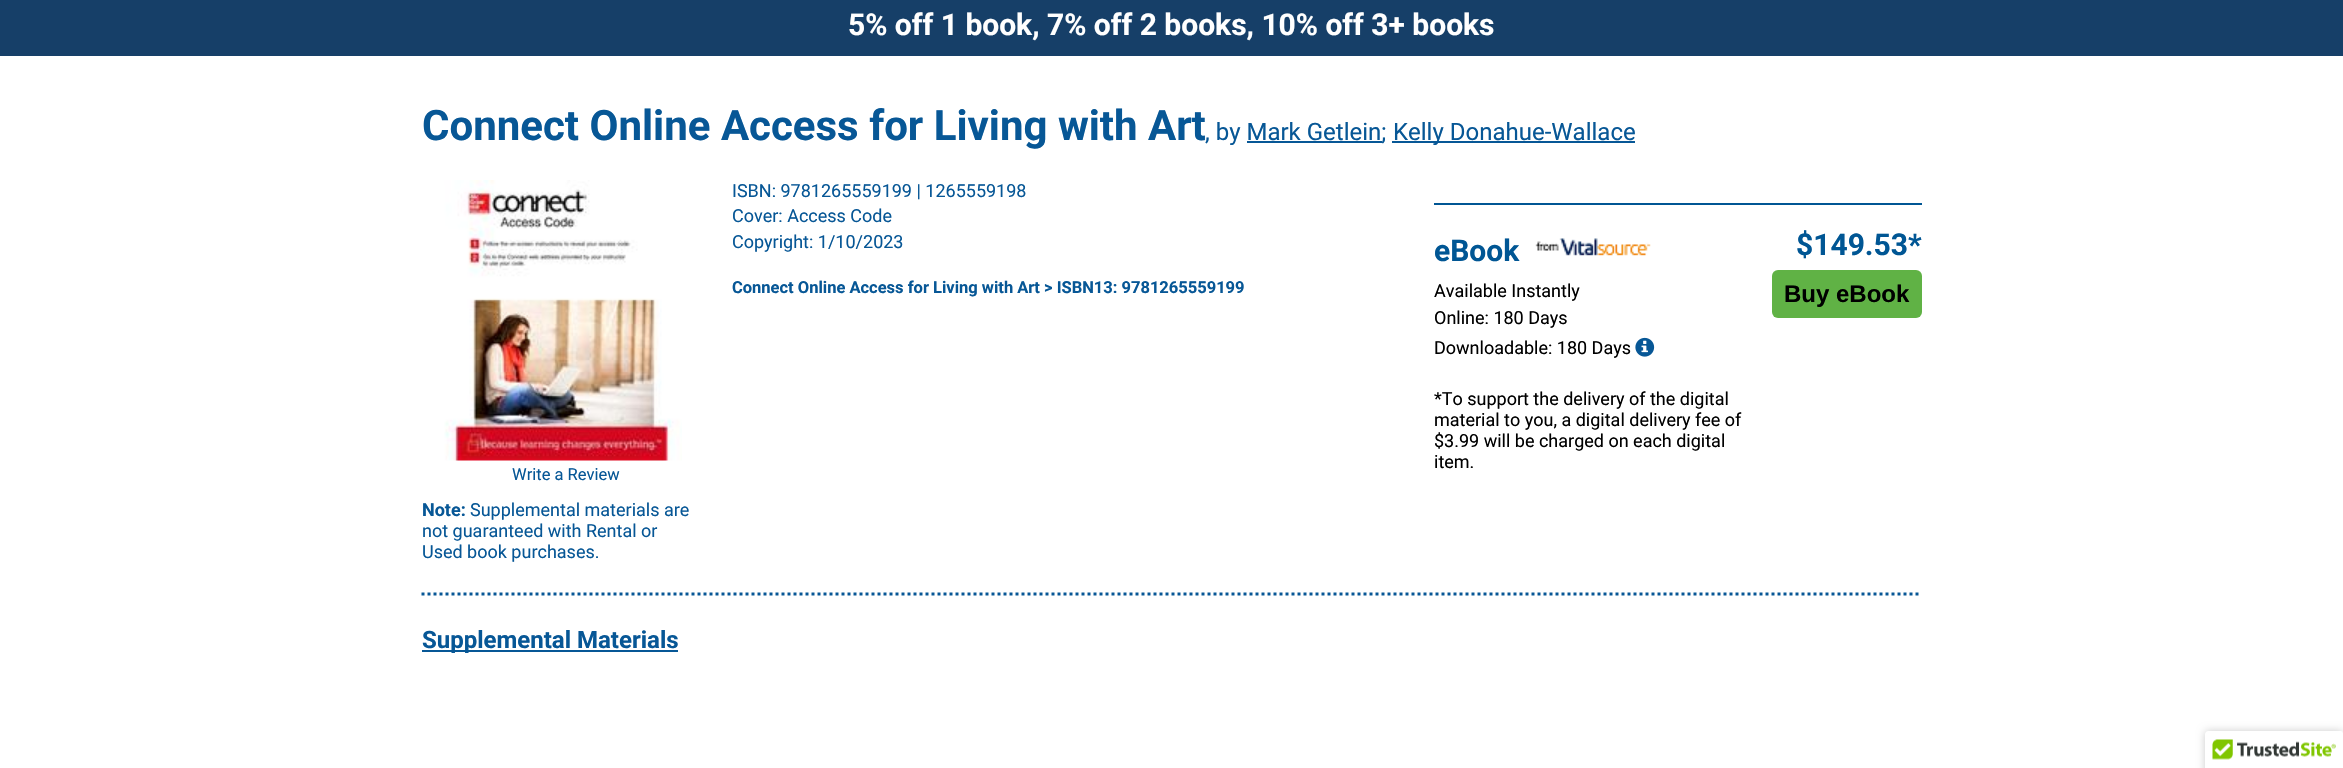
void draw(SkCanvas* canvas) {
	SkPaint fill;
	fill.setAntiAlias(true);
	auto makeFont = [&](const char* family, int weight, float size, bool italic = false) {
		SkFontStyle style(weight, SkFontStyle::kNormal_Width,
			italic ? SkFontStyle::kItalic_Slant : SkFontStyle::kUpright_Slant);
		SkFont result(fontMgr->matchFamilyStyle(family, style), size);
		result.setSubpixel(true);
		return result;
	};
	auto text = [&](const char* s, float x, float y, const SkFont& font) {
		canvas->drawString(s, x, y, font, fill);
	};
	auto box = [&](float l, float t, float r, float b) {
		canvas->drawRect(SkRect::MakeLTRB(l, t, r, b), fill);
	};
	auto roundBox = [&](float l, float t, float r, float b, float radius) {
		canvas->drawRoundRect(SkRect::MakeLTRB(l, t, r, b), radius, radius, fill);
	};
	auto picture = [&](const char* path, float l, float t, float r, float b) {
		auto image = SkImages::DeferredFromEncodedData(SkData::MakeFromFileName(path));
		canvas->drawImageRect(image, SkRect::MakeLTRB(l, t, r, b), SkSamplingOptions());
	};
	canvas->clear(0xFFFFFFFF);
	fill.setColor(0xFF163F68);
	box(0, 0, 2343, 56);
	fill.setColor(0xFF075796);
	box(1392, 141, 1635, 143);
	box(1247, 141, 1382, 143);
	fill.setColor(0xFF005694);
	box(1434, 203, 1922, 205);
	picture("image0.png", 1535, 238, 1651, 256);
	picture("image1.png", 1635, 337, 1655, 357);
	fill.setColor(0xFF60B245);
	roundBox(1772, 270, 1922, 318, 6);
	picture("image2.png", 444, 180, 682, 461);
	fill.setStyle(SkPaint::kStroke_Style);
	fill.setStrokeWidth(3);
	fill.setColor(0xFF085796);
	fill.setPathEffect(SkDashPathEffect::Make({{3, 3}}, 0));
	canvas->drawPath(SkPathBuilder().moveTo(421.5f, 594).lineTo(1921.5f, 594).detach(), fill);
	fill.setPathEffect(nullptr);
	fill.setStyle(SkPaint::kFill_Style);
	fill.setColor(0xFF075796);
	box(422, 650, 678, 652);
	fill.setColor(0x33000000);
	fill.setMaskFilter(SkMaskFilter::MakeBlur(kNormal_SkBlurStyle, 4));
	canvas->drawRoundRect(SkRect::MakeLTRB(2205, 731, 2343, 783), 3, 3, fill);
	fill.setMaskFilter(nullptr);
	fill.setColor(0xFFFFFFFF);
	canvas->drawPath(SkPathBuilder().moveTo(2208, 731).lineTo(2343, 731).lineTo(2343, 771).lineTo(2205, 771).lineTo(2205, 734).cubicTo(2205, 732.5f, 2206.5f, 731, 2208, 731).close().detach(), fill);
	picture("image3.png", 2212, 731, 2343, 760);
	auto font1 = makeFont("Roboto", 700, 30);
	text("5% off 1 book, 7% off 2 books, 10% off 3+ books", 848, 35, font1);
	auto font2 = makeFont("Roboto", 700, 42);
	fill.setColor(0xFF075796);
	text("Connect Online Access for Living with Art", 422, 140, font2);
	auto font3 = makeFont("Roboto", 400, 24);
	text(", by Mark Getlein;", 1205, 140, font3);
	text("Kelly Donahue-Wallace", 1393, 140, font3);
	auto font4 = makeFont("Roboto", 400, 18);
	text("ISBN: 9781265559199 | 1265559198", 732, 197, font4);
	text("Cover: Access Code", 732, 222, font4);
	text("Copyright: 1/10/2023", 732, 248, font4);
	auto font5 = makeFont("Roboto", 700, 16.5f);
	text("Connect Online Access for Living with Art > ISBN13: 9781265559199", 732, 293, font5);
	fill.setColor(0xFF005694);
	text("eBook", 1434, 261, font1);
	fill.setColor(0xFF000000);
	text("Available Instantly", 1434, 297, font4);
	text("Online: 180 Days", 1434, 324, font4);
	text("Downloadable: 180 Days", 1434, 354, font4);
	text("*To support the delivery of the digital", 1434, 405, font4);
	text("material to you, a digital delivery fee of", 1434, 426, font4);
	text("$3.99 will be charged on each digital", 1434, 447, font4);
	text("item.", 1434, 468, font4);
	fill.setColor(0xFF005694);
	text("$149.53*", 1796, 255, font1);
	auto font6 = makeFont("Liberation Sans", 700, 24);
	fill.setColor(0xFF000000);
	text("Buy eBook", 1784, 302, font6);
	auto font7 = makeFont("Roboto", 400, 16.5f);
	fill.setColor(0xFF075796);
	text("Write a Review", 512, 480, font7);
	auto font8 = makeFont("Roboto", 700, 18);
	text("Note:", 422, 516, font8);
	text("Supplemental materials are", 470, 516, font4);
	text("not guaranteed with Rental or", 422, 537, font4);
	text("Used book purchases.", 422, 558, font4);
	auto font9 = makeFont("Roboto", 700, 24);
	text("Supplemental Materials", 422, 648, font9);
}
